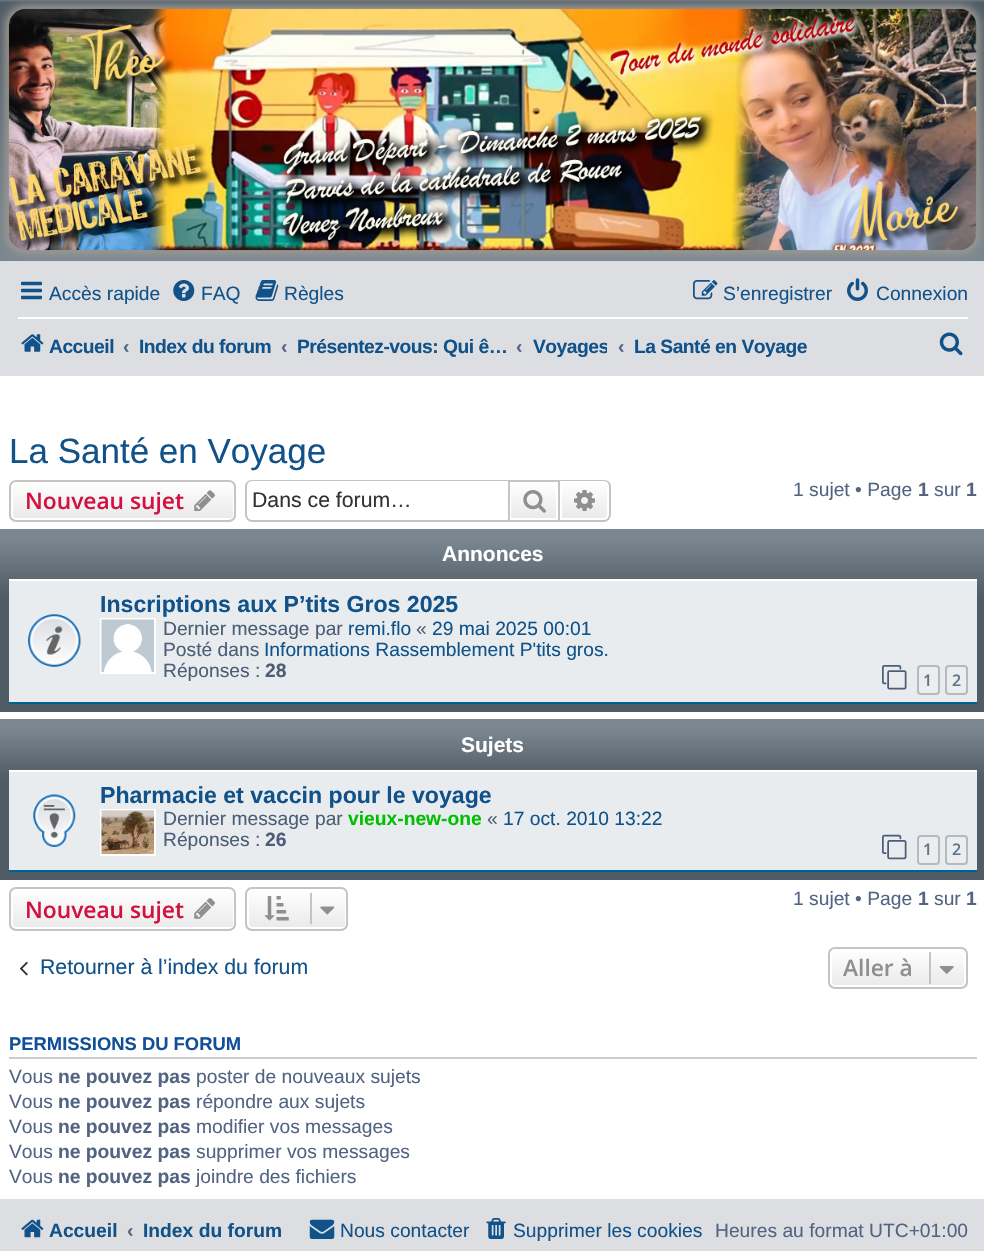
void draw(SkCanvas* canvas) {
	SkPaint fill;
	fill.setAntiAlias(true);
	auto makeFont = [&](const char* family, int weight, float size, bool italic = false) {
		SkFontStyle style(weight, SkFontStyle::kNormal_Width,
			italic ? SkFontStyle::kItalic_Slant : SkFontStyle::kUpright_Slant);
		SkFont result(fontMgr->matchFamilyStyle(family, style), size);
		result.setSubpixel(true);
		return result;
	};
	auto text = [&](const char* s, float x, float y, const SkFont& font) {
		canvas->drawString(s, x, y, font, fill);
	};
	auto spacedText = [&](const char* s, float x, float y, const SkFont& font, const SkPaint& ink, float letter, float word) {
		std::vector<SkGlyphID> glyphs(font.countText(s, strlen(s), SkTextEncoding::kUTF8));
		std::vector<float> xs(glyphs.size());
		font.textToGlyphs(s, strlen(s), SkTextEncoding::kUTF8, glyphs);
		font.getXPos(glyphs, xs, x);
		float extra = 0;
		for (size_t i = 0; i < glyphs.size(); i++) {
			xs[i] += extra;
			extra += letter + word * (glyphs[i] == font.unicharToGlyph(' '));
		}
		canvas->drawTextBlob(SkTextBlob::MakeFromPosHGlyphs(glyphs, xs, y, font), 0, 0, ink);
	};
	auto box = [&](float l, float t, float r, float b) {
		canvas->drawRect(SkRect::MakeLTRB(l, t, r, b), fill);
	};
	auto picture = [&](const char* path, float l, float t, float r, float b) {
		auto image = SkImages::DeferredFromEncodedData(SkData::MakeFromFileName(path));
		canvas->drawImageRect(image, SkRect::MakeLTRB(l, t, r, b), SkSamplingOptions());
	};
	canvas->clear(0xFFFFFFFF);
	{
		const SkColor colors[] = {0xFF6E777F, 0xFF505C65, 0xFF56626B, 0xFF737F88, 0xFF7C8891};
		const float stops[] = {0, 0.01f, 0.2f, 0.75f, 1};
		const SkPoint ends[] = {{493, 0}, {493, 263}};
		fill.setShader(SkGradientShader::MakeLinear(ends, colors, stops, 5, SkTileMode::kClamp));
		fill.setAlpha(255);
	}
	box(0, 0, 984, 261);
	fill.setShader(nullptr);
	fill.setColor(0xFFDCDEE2);
	box(0, 261, 984, 376);
	fill.setColor(0xFF9D9A93);
	fill.setMaskFilter(SkMaskFilter::MakeBlur(kNormal_SkBlurStyle, 4.5f));
	canvas->drawRoundRect(SkRect::MakeLTRB(5, 5, 980, 254), 21, 21, fill);
	fill.setMaskFilter(nullptr);
	picture("image0.png", 8, 8, 977, 251);
	picture("image1.png", 21, 281, 42, 300);
	picture("image2.png", 173, 280, 195, 301);
	picture("image3.png", 255, 280, 279, 301);
	picture("image4.png", 693, 280, 718, 300);
	picture("image5.png", 847, 278, 868, 301);
	fill.setColor(0xFFFFFFFF);
	box(18, 317, 968, 319);
	picture("image6.png", 21, 334, 44, 352);
	picture("image7.png", 939, 332, 963, 356);
	canvas->save();
	canvas->clipPath(SkPathBuilder().moveTo(16, 480).lineTo(229, 480).cubicTo(233, 480, 236, 483, 236, 487).lineTo(236, 515).cubicTo(236, 519, 233, 522, 229, 522).lineTo(16, 522).cubicTo(12, 522, 9, 519, 9, 515).lineTo(9, 487).cubicTo(9, 483, 12, 480, 16, 480).close().detach(), true);
	{
		const SkColor colors[] = {0xFFFFFFFF, 0xFFE9E9E9};
		const float stops[] = {0, 1};
		const SkPoint ends[] = {{123, 481}, {123, 520}};
		fill.setShader(SkGradientShader::MakeLinear(ends, colors, stops, 2, SkTileMode::kClamp));
		fill.setAlpha(255);
	}
	box(9, 481, 236, 520);
	canvas->restore();
	fill.setStyle(SkPaint::kStroke_Style);
	fill.setStrokeWidth(2);
	fill.setShader(nullptr);
	fill.setColor(0xFFFFFFFF);
	canvas->drawRoundRect(SkRect::MakeLTRB(12, 482, 234, 519), 4, 4, fill);
	fill.setColor(0xFFC7C3BF);
	canvas->drawRoundRect(SkRect::MakeLTRB(10, 481, 235, 521), 6, 6, fill);
	picture("image8.png", 194, 490, 215, 511);
	fill.setStyle(SkPaint::kFill_Style);
	canvas->drawPath(SkPathBuilder(SkPathFillType::kEvenOdd).moveTo(252, 480).lineTo(508, 480).lineTo(508, 522).lineTo(252, 522).cubicTo(248, 522, 245, 518, 245, 514).lineTo(245, 486).cubicTo(245, 483, 248, 480, 252, 480).close().moveTo(252, 481).lineTo(508, 481).lineTo(508, 520).lineTo(252, 520).cubicTo(249, 520, 247, 517, 247, 514).lineTo(247, 486).cubicTo(247, 484, 249, 481, 252, 481).close().detach(), fill);
	{
		const SkColor colors[] = {0xFFFFFFFF, 0xFFE9E9E9};
		const float stops[] = {0, 1};
		const SkPoint ends[] = {{534, 481}, {534, 520}};
		fill.setShader(SkGradientShader::MakeLinear(ends, colors, stops, 2, SkTileMode::kClamp));
		fill.setAlpha(255);
	}
	box(511, 485, 556, 518);
	fill.setStyle(SkPaint::kStroke_Style);
	fill.setShader(nullptr);
	fill.setColor(0xFFC7C3BF);
	canvas->drawRect(SkRect::MakeLTRB(509, 481, 559, 521), fill);
	picture("image9.png", 523, 490, 546, 513);
	fill.setStyle(SkPaint::kFill_Style);
	{
		const SkColor colors[] = {0xFFFFFFFF, 0xFFE9E9E9};
		const float stops[] = {0, 1};
		const SkPoint ends[] = {{585, 481}, {585, 520}};
		fill.setShader(SkGradientShader::MakeLinear(ends, colors, stops, 2, SkTileMode::kClamp));
		fill.setAlpha(255);
	}
	canvas->drawPath(SkPathBuilder().moveTo(561, 482).lineTo(604, 482).cubicTo(606, 482, 608, 484, 608, 486).lineTo(608, 515).cubicTo(608, 517, 606, 519, 604, 519).lineTo(561, 519).close().detach(), fill);
	fill.setStyle(SkPaint::kStroke_Style);
	fill.setShader(nullptr);
	fill.setColor(0xFFFFFFFF);
	canvas->drawPath(SkPathBuilder().moveTo(561, 482).lineTo(604, 482).cubicTo(606, 482, 608, 484, 608, 486).lineTo(608, 515).cubicTo(608, 517, 606, 519, 604, 519).lineTo(561, 519).close().detach(), fill);
	fill.setStyle(SkPaint::kFill_Style);
	fill.setColor(0xFFC7C3BF);
	canvas->drawPath(SkPathBuilder(SkPathFillType::kEvenOdd).moveTo(560, 480).lineTo(604, 480).cubicTo(608, 480, 611, 483, 611, 486).lineTo(611, 514).cubicTo(611, 518, 608, 522, 604, 522).lineTo(560, 522).close().moveTo(560, 481).lineTo(604, 481).cubicTo(607, 481, 609, 484, 609, 486).lineTo(609, 514).cubicTo(609, 517, 607, 520, 604, 520).lineTo(560, 520).close().detach(), fill);
	picture("image10.png", 574, 490, 595, 511);
	{
		const SkColor colors[] = {0xFF7C8891, 0xFF7C8790, 0xFF76828B, 0xFF5B666F, 0xFF505C65, 0xFF505C65};
		const float stops[] = {0, 0.04f, 0.1f, 0.29f, 0.38f, 1};
		const SkPoint ends[] = {{493, 528}, {493, 712}};
		fill.setShader(SkGradientShader::MakeLinear(ends, colors, stops, 6, SkTileMode::kClamp));
		fill.setAlpha(255);
	}
	box(0, 529, 984, 712);
	fill.setShader(nullptr);
	fill.setColor(0xFFE8ECEE);
	box(9, 581, 977, 702);
	fill.setColor(0xFFFFFFFF);
	box(9, 579, 977, 581);
	fill.setColor(0xFF00608F);
	box(9, 702, 977, 704);
	picture("image11.png", 28, 614, 81, 667);
	fill.setStyle(SkPaint::kStroke_Style);
	fill.setColor(0xFFFFFFFF);
	canvas->drawRect(SkRect::MakeLTRB(101, 619, 155, 673), fill);
	picture("image12.png", 101, 619, 154, 672);
	picture("image13.png", 882, 665, 907, 690);
	fill.setStyle(SkPaint::kFill_Style);
	fill.setColor(0xFFECEDEE);
	canvas->drawRoundRect(SkRect::MakeLTRB(918, 666, 939, 694), 3, 3, fill);
	fill.setStyle(SkPaint::kStroke_Style);
	fill.setColor(0xFFB4BAC0);
	canvas->drawRoundRect(SkRect::MakeLTRB(918, 666, 939, 694), 3, 3, fill);
	fill.setStyle(SkPaint::kFill_Style);
	fill.setColor(0xFFECEDEE);
	canvas->drawRoundRect(SkRect::MakeLTRB(946, 666, 967, 694), 3, 3, fill);
	fill.setStyle(SkPaint::kStroke_Style);
	fill.setColor(0xFFB4BAC0);
	canvas->drawRoundRect(SkRect::MakeLTRB(946, 666, 967, 694), 3, 3, fill);
	fill.setStyle(SkPaint::kFill_Style);
	{
		const SkColor colors[] = {0xFF7C8891, 0xFF7C8790, 0xFF76828B, 0xFF5B666F, 0xFF505C65, 0xFF505C65};
		const float stops[] = {0, 0.04f, 0.1f, 0.29f, 0.38f, 1};
		const SkPoint ends[] = {{493, 719}, {493, 880}};
		fill.setShader(SkGradientShader::MakeLinear(ends, colors, stops, 6, SkTileMode::kClamp));
		fill.setAlpha(255);
	}
	box(0, 719, 984, 880);
	fill.setShader(nullptr);
	fill.setColor(0xFFE8ECEE);
	box(9, 772, 977, 870);
	fill.setColor(0xFFFFFFFF);
	box(9, 770, 977, 772);
	fill.setColor(0xFF00608F);
	box(9, 870, 977, 872);
	picture("image14.png", 33, 794, 76, 847);
	fill.setStyle(SkPaint::kStroke_Style);
	fill.setColor(0xFFFFFFFF);
	canvas->drawRect(SkRect::MakeLTRB(101, 810, 155, 855), fill);
	picture("image15.png", 101, 810, 154, 854);
	picture("image16.png", 882, 834, 907, 860);
	fill.setStyle(SkPaint::kFill_Style);
	fill.setColor(0xFFECEDEE);
	canvas->drawRoundRect(SkRect::MakeLTRB(918, 836, 939, 864), 3, 3, fill);
	fill.setStyle(SkPaint::kStroke_Style);
	fill.setColor(0xFFB4BAC0);
	canvas->drawRoundRect(SkRect::MakeLTRB(918, 836, 939, 864), 3, 3, fill);
	fill.setStyle(SkPaint::kFill_Style);
	fill.setColor(0xFFECEDEE);
	canvas->drawRoundRect(SkRect::MakeLTRB(946, 836, 967, 864), 3, 3, fill);
	fill.setStyle(SkPaint::kStroke_Style);
	fill.setColor(0xFFB4BAC0);
	canvas->drawRoundRect(SkRect::MakeLTRB(946, 836, 967, 864), 3, 3, fill);
	canvas->save();
	canvas->clipPath(SkPathBuilder().moveTo(16, 887).lineTo(229, 887).cubicTo(233, 887, 236, 890, 236, 894).lineTo(236, 924).cubicTo(236, 928, 233, 931, 229, 931).lineTo(16, 931).cubicTo(12, 931, 9, 928, 9, 924).lineTo(9, 894).cubicTo(9, 890, 12, 887, 16, 887).close().detach(), true);
	fill.setStyle(SkPaint::kFill_Style);
	{
		const SkColor colors[] = {0xFFFFFFFF, 0xFFE9E9E9};
		const float stops[] = {0, 1};
		const SkPoint ends[] = {{123, 889}, {123, 929}};
		fill.setShader(SkGradientShader::MakeLinear(ends, colors, stops, 2, SkTileMode::kClamp));
		fill.setAlpha(255);
	}
	box(9, 889, 236, 929);
	canvas->restore();
	fill.setStyle(SkPaint::kStroke_Style);
	fill.setShader(nullptr);
	fill.setColor(0xFFFFFFFF);
	canvas->drawRoundRect(SkRect::MakeLTRB(12, 890, 234, 928), 4, 4, fill);
	fill.setColor(0xFFC7C3BF);
	canvas->drawRoundRect(SkRect::MakeLTRB(10, 888, 235, 930), 6, 6, fill);
	picture("image17.png", 194, 898, 215, 919);
	canvas->save();
	canvas->clipPath(SkPathBuilder().moveTo(252, 887).lineTo(341, 887).cubicTo(345, 887, 348, 890, 348, 894).lineTo(348, 924).cubicTo(348, 928, 345, 931, 341, 931).lineTo(252, 931).cubicTo(248, 931, 245, 928, 245, 924).lineTo(245, 894).cubicTo(245, 890, 248, 887, 252, 887).close().detach(), true);
	fill.setStyle(SkPaint::kFill_Style);
	{
		const SkColor colors[] = {0xFFFFFFFF, 0xFFE9E9E9};
		const float stops[] = {0, 1};
		const SkPoint ends[] = {{297, 889}, {297, 929}};
		fill.setShader(SkGradientShader::MakeLinear(ends, colors, stops, 2, SkTileMode::kClamp));
		fill.setAlpha(255);
	}
	box(245, 889, 348, 929);
	canvas->restore();
	fill.setStyle(SkPaint::kStroke_Style);
	fill.setShader(nullptr);
	fill.setColor(0xFFFFFFFF);
	canvas->drawRoundRect(SkRect::MakeLTRB(248, 890, 346, 928), 4, 4, fill);
	fill.setColor(0xFFC7C3BF);
	canvas->drawRoundRect(SkRect::MakeLTRB(246, 888, 347, 930), 6, 6, fill);
	picture("image18.png", 264, 896, 289, 921);
	fill.setStyle(SkPaint::kFill_Style);
	box(310, 893, 312, 924);
	picture("image19.png", 320, 906, 335, 915);
	picture("image20.png", 19, 961, 28, 976);
	canvas->save();
	canvas->clipPath(SkPathBuilder().moveTo(835, 947).lineTo(961, 947).cubicTo(965, 947, 968, 950, 968, 954).lineTo(968, 982).cubicTo(968, 986, 965, 989, 961, 989).lineTo(835, 989).cubicTo(831, 989, 828, 986, 828, 982).lineTo(828, 954).cubicTo(828, 950, 831, 947, 835, 947).close().detach(), true);
	{
		const SkColor colors[] = {0xFFFFFFFF, 0xFFE9E9E9};
		const float stops[] = {0, 1};
		const SkPoint ends[] = {{898, 949}, {898, 987}};
		fill.setShader(SkGradientShader::MakeLinear(ends, colors, stops, 2, SkTileMode::kClamp));
		fill.setAlpha(255);
	}
	box(828, 949, 968, 987);
	canvas->restore();
	fill.setStyle(SkPaint::kStroke_Style);
	fill.setShader(nullptr);
	fill.setColor(0xFFFFFFFF);
	canvas->drawRoundRect(SkRect::MakeLTRB(831, 950, 965, 986), 4, 4, fill);
	fill.setColor(0xFFC7C3BF);
	canvas->drawRoundRect(SkRect::MakeLTRB(829, 948, 967, 988), 6, 6, fill);
	fill.setStyle(SkPaint::kFill_Style);
	box(929, 952, 931, 984);
	picture("image21.png", 939, 966, 954, 974);
	fill.setColor(0xFFCCCCCC);
	box(9, 1057, 977, 1059);
	fill.setColor(0xFFDCDEE2);
	box(0, 1199, 984, 1251);
	picture("image22.png", 21, 1219, 44, 1238);
	picture("image23.png", 309, 1219, 335, 1239);
	picture("image24.png", 486, 1218, 506, 1239);
	auto font1 = makeFont("Liberation Sans", 400, 19.25f);
	fill.setColor(0xFF105289);
	text("Accès rapide", 49, 300, font1);
	text("FAQ", 201, 300, font1);
	text("Règles", 284, 300, font1);
	text("S’enregistrer", 723, 300, font1);
	text("Connexion", 876, 300, font1);
	auto font2 = makeFont("Liberation Sans", 700, 19.25f);
	spacedText("Accueil", 49, 353, font2, fill, -0.5f, 0);
	fill.setColor(0xFF536482);
	text("‹", 123, 353, font2);
	fill.setColor(0xFF105289);
	spacedText("Index du forum", 139, 353, font2, fill, -0.5f, 0);
	fill.setColor(0xFF536482);
	text("‹", 281, 353, font2);
	fill.setColor(0xFF105289);
	spacedText("Présentez-vous: Qui ê…", 297, 353, font2, fill, -0.5f, 0);
	fill.setColor(0xFF536482);
	text("‹", 516, 353, font2);
	canvas->save();
	canvas->clipRect(SkRect::MakeLTRB(532, 324, 607, 368));
	fill.setColor(0xFF105289);
	spacedText("Voyages", 533, 353, font2, fill, -0.5f, 0);
	canvas->restore();
	fill.setColor(0xFF536482);
	text("‹", 618, 353, font2);
	fill.setColor(0xFF105289);
	spacedText("La Santé en Voyage", 634, 353, font2, fill, -0.5f, 0);
	auto font3 = makeFont("Liberation Sans", 400, 35);
	text("La Santé en Voyage", 9, 463, font3);
	auto font4 = makeFont("Open Sans", 600, 22.75f);
	fill.setColor(0xFFD31141);
	text("Nouveau sujet", 25, 509, font4);
	auto font5 = makeFont("Liberation Sans", 400, 21.25f);
	fill.setColor(0xFF333333);
	text("Dans ce forum…", 252, 507, font5);
	fill.setColor(0xFF536482);
	text("1 sujet • Page", 793, 496, font1);
	text("1", 918, 496, font2);
	text("sur", 934, 496, font1);
	text("1", 966, 496, font2);
	auto font6 = makeFont("Liberation Sans", 700, 21);
	fill.setColor(0xFFFFFFFF);
	text("Annonces", 442, 561, font6);
	auto font7 = makeFont("Liberation Sans", 700, 23.1f);
	fill.setColor(0xFF105289);
	text("Inscriptions aux P’tits Gros 2025", 100, 612, font7);
	fill.setColor(0xFF4C5D77);
	text("Dernier message par", 163, 635, font1);
	fill.setColor(0xFF105289);
	text("remi.flo", 348, 635, font1);
	fill.setColor(0xFF4C5D77);
	text("«", 416, 635, font1);
	fill.setColor(0xFF105289);
	text("29 mai 2025 00:01", 432, 635, font1);
	fill.setColor(0xFF4C5D77);
	text("Posté dans", 163, 656, font1);
	fill.setColor(0xFF105289);
	text("Informations Rassemblement P'tits gros.", 264, 656, font1);
	fill.setColor(0xFF4C5D77);
	text("Réponses :", 163, 677, font1);
	text("28", 265, 677, font2);
	auto font8 = makeFont("Open Sans", 600, 16);
	fill.setColor(0xFF5C758C);
	text("1", 923, 686, font8);
	text("2", 952, 686, font8);
	fill.setColor(0xFFFFFFFF);
	text("Sujets", 461, 752, font6);
	fill.setColor(0xFF105289);
	text("Pharmacie et vaccin pour le voyage", 100, 803, font7);
	fill.setColor(0xFF4C5D77);
	text("Dernier message par", 163, 825, font1);
	fill.setColor(0xFF00BF00);
	text("vieux-new-one", 348, 825, font2);
	fill.setColor(0xFF4C5D77);
	text("«", 487, 825, font1);
	fill.setColor(0xFF105289);
	text("17 oct. 2010 13:22", 503, 825, font1);
	fill.setColor(0xFF4C5D77);
	text("Réponses :", 163, 846, font1);
	text("26", 265, 846, font2);
	fill.setColor(0xFF5C758C);
	text("1", 923, 855, font8);
	text("2", 952, 855, font8);
	fill.setColor(0xFFD31141);
	text("Nouveau sujet", 25, 918, font4);
	fill.setColor(0xFF536482);
	text("1 sujet • Page", 793, 905, font1);
	text("1", 918, 905, font2);
	text("sur", 934, 905, font1);
	text("1", 966, 905, font2);
	fill.setColor(0xFF105289);
	text("Retourner à l’index du forum", 40, 974, font5);
	fill.setColor(0xFF8F8F8F);
	text("Aller à", 843, 976, font4);
	auto font9 = makeFont("Liberation Sans", 700, 18.4f);
	fill.setColor(0xFF115098);
	text("PERMISSIONS DU FORUM", 9, 1050, font9);
	fill.setColor(0xFF536482);
	text("Vous", 9, 1083, font1);
	text("ne pouvez pas", 58, 1083, font2);
	text("poster de nouveaux sujets", 196, 1083, font1);
	text("Vous", 9, 1108, font1);
	text("ne pouvez pas", 58, 1108, font2);
	text("répondre aux sujets", 196, 1108, font1);
	text("Vous", 9, 1133, font1);
	text("ne pouvez pas", 58, 1133, font2);
	text("modifier vos messages", 196, 1133, font1);
	text("Vous", 9, 1158, font1);
	text("ne pouvez pas", 58, 1158, font2);
	text("supprimer vos messages", 196, 1158, font1);
	text("Vous", 9, 1183, font1);
	text("ne pouvez pas", 58, 1183, font2);
	text("joindre des fichiers", 196, 1183, font1);
	fill.setColor(0xFF105289);
	text("Accueil", 49, 1237, font2);
	fill.setColor(0xFF536482);
	text("‹", 127, 1237, font2);
	fill.setColor(0xFF105289);
	text("Index du forum", 143, 1237, font2);
	text("Nous contacter", 340, 1237, font1);
	text("Supprimer les cookies", 513, 1237, font1);
	fill.setColor(0xFF536482);
	text("Heures au format UTC+01:00", 715, 1237, font1);
}
